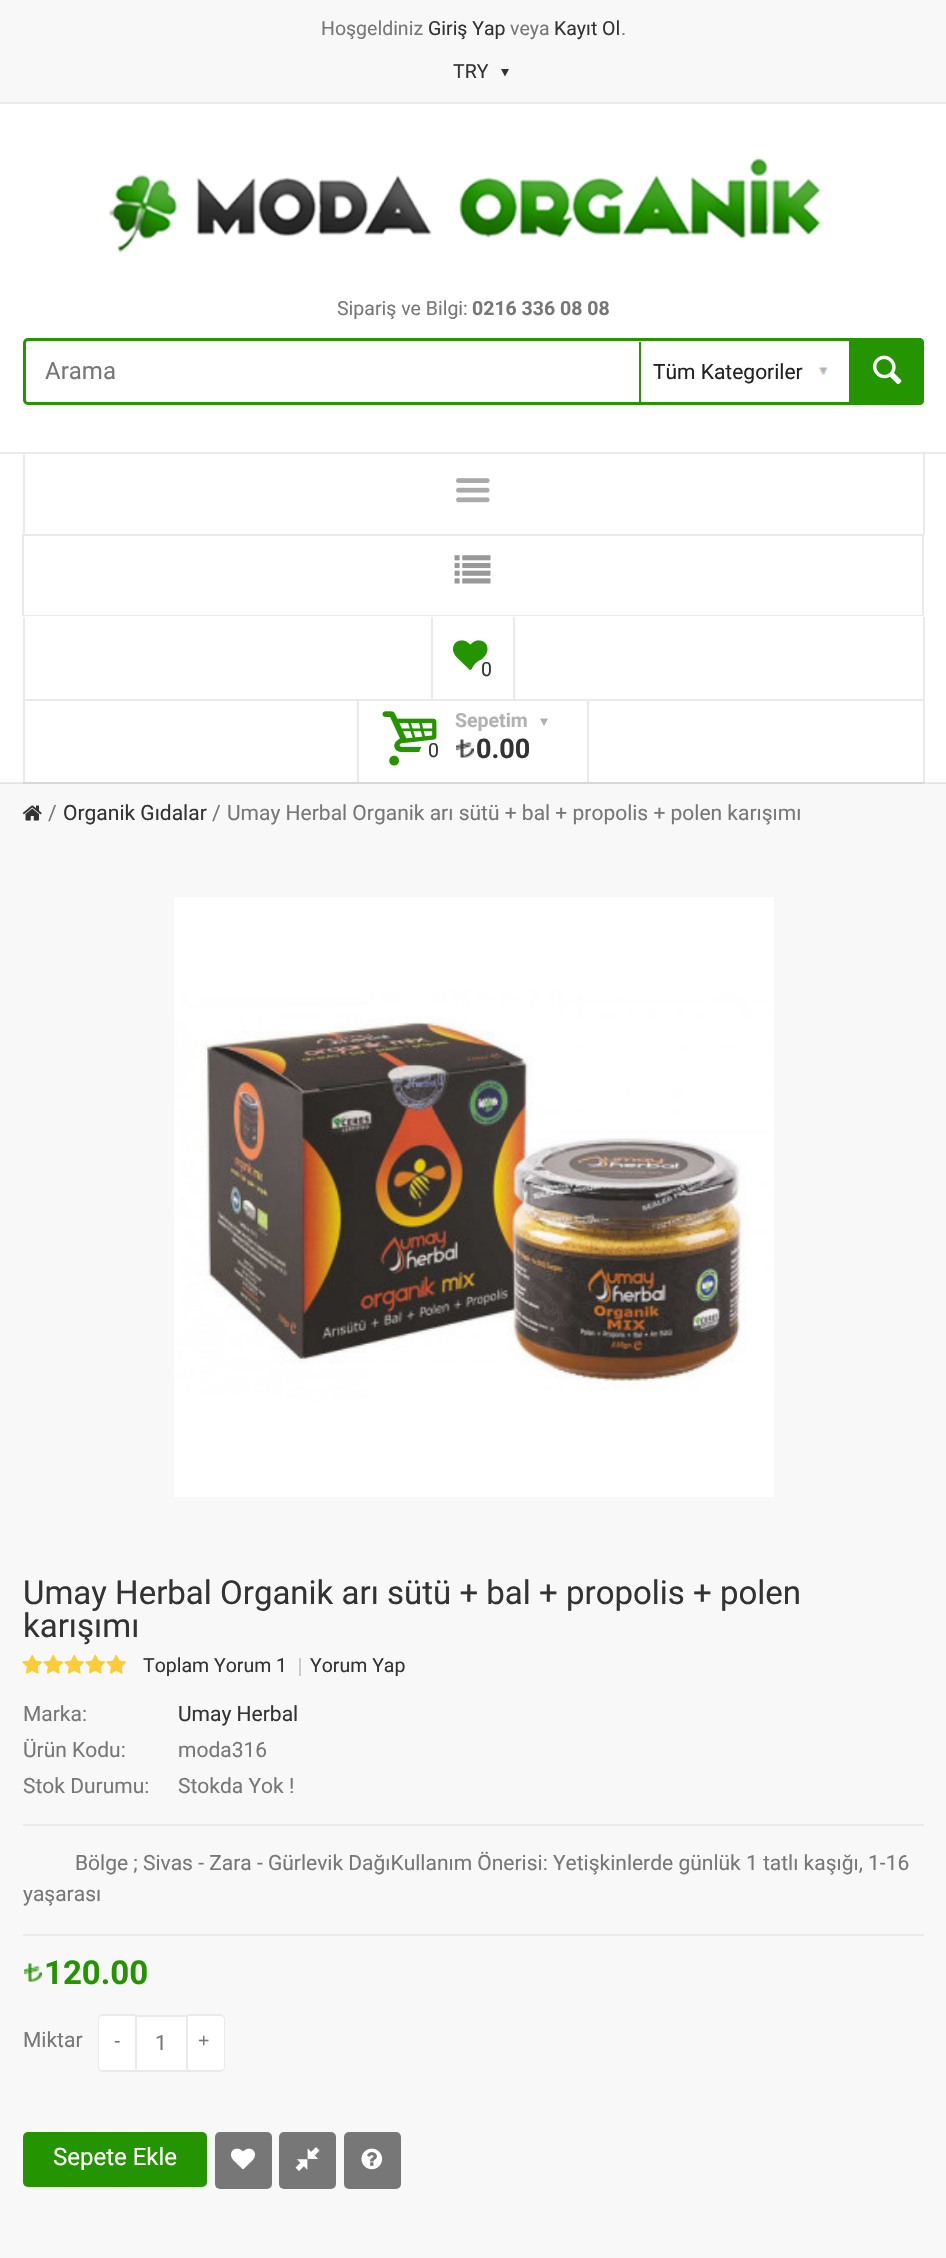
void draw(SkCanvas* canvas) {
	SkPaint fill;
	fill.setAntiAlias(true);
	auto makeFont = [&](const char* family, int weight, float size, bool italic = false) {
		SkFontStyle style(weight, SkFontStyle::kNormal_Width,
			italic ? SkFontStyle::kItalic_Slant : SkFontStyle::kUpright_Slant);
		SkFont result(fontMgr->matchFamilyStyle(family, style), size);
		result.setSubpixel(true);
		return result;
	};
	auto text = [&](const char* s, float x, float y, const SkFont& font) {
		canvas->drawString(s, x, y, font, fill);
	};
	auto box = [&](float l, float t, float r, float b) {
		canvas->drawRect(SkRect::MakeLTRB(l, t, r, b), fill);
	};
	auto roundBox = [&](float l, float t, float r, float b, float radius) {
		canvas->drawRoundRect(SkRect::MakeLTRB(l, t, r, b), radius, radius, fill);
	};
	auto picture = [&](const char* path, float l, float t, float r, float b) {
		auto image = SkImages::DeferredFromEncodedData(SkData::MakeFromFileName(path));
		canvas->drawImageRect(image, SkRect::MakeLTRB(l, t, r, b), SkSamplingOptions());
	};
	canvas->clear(0xFFF8F8F8);
	fill.setColor(0xFFE4E4E4);
	box(0, 783, 946, 784);
	fill.setColor(0xFFFFFFFF);
	box(0, 104, 946, 782);
	fill.setColor(0xFFEBEBEB);
	box(0, 782, 946, 783);
	fill.setColor(0xFFEAEAEA);
	box(0, 102, 946, 104);
	fill.setColor(0xFF333333);
	canvas->drawPath(SkPathBuilder().moveTo(505, 76.5f).lineTo(501, 69).lineTo(509, 69).close().detach(), fill);
	picture("image0.png", 109, 157, 824, 254);
	fill.setStyle(SkPaint::kStroke_Style);
	fill.setStrokeWidth(3);
	fill.setColor(0xFF249400);
	canvas->drawRoundRect(SkRect::MakeLTRB(24.5f, 339.5f, 922.5f, 403.5f), 3.5f, 3.5f, fill);
	picture("image1.png", 819, 367, 829, 375);
	fill.setStyle(SkPaint::kFill_Style);
	box(639, 342, 641, 402);
	canvas->drawPath(SkPathBuilder().moveTo(849, 338).lineTo(919, 338).cubicTo(922, 338, 924, 340, 924, 343).lineTo(924, 400).cubicTo(924, 403, 922, 405, 919, 405).lineTo(849, 405).close().detach(), fill);
	picture("image2.png", 873, 355, 902, 385);
	fill.setColor(0xFFEBEBEB);
	box(0, 452, 946, 454);
	fill.setColor(0xFFEAEAEA);
	box(923, 452, 925, 534);
	box(23, 452, 25, 534);
	picture("image3.png", 456, 478, 490, 503);
	canvas->drawPath(SkPathBuilder().moveTo(22, 534).lineTo(924, 534).lineTo(922, 536).lineTo(24, 536).close().detach(), fill);
	fill.setColor(0x14000000);
	canvas->drawPath(SkPathBuilder().moveTo(924, 534).lineTo(924, 616).lineTo(922, 615).lineTo(922, 536).close().detach(), fill);
	fill.setColor(0xFFEAEAEA);
	canvas->drawPath(SkPathBuilder().moveTo(924, 616).lineTo(22, 616).lineTo(24, 615).lineTo(922, 615).close().detach(), fill);
	fill.setColor(0x14000000);
	canvas->drawPath(SkPathBuilder().moveTo(22, 616).lineTo(22, 534).lineTo(24, 536).lineTo(24, 615).close().detach(), fill);
	picture("image4.png", 454, 555, 491, 584);
	fill.setColor(0xFFEAEAEA);
	box(923, 617, 925, 783);
	box(23, 699, 924, 701);
	box(23, 617, 25, 701);
	box(513, 617, 515, 699);
	box(431, 617, 433, 699);
	picture("image5.png", 453, 640, 488, 670);
	fill.setColor(0xFFFFFFFF);
	canvas->drawCircle(486, 674, 15, fill);
	fill.setColor(0xFFD7D7D7);
	box(923, 782, 925, 783);
	box(23, 782, 924, 784);
	fill.setColor(0xFFEAEAEA);
	box(23, 701, 25, 783);
	fill.setColor(0xFFD7D7D7);
	box(23, 782, 25, 783);
	fill.setColor(0xFFEAEAEA);
	box(587, 699, 589, 782);
	box(357, 699, 359, 782);
	picture("image6.png", 382, 711, 437, 766);
	fill.setColor(0xFFB2B2B2);
	canvas->drawPath(SkPathBuilder().moveTo(544, 726).lineTo(540, 718.5f).lineTo(548, 718.5f).close().detach(), fill);
	fill.setColor(0xFFFFFFFF);
	canvas->drawCircle(434, 755, 15, fill);
	picture("image7.png", 456, 739, 474, 758);
	picture("image8.png", 22, 805, 42, 821);
	picture("image9.png", 174, 897, 774, 1497);
	picture("image10.png", 22, 1654, 42, 1674);
	picture("image10.png", 43, 1654, 63, 1674);
	picture("image10.png", 64, 1654, 84, 1674);
	picture("image10.png", 85, 1654, 105, 1674);
	picture("image10.png", 106, 1654, 126, 1674);
	picture("image11.png", 22, 1654, 126, 1674);
	fill.setColor(0xFFCCCCCC);
	box(299, 1658, 301, 1676);
	fill.setColor(0xFFEAEAEA);
	box(23, 1824, 924, 1826);
	box(23, 1934, 924, 1936);
	picture("image12.png", 24, 1963, 42, 1982);
	fill.setColor(0xFFFFFFFF);
	canvas->drawPath(SkPathBuilder().moveTo(103, 2015).lineTo(135, 2015).lineTo(135, 2072).lineTo(103, 2072).cubicTo(100, 2072, 98, 2070, 98, 2067).lineTo(98, 2020).cubicTo(98, 2017, 100, 2015, 103, 2015).close().detach(), fill);
	fill.setColor(0xFFEAEAEA);
	canvas->drawPath(SkPathBuilder(SkPathFillType::kEvenOdd).moveTo(102, 2014).lineTo(135, 2014).lineTo(135, 2072).lineTo(102, 2072).cubicTo(100, 2072, 98, 2069, 98, 2067).lineTo(98, 2019).cubicTo(98, 2017, 100, 2014, 102, 2014).close().moveTo(102, 2016).lineTo(135, 2016).lineTo(135, 2070).lineTo(102, 2070).cubicTo(100, 2070, 99, 2069, 99, 2067).lineTo(99, 2019).cubicTo(99, 2017, 100, 2016, 102, 2016).close().detach(), fill);
	fill.setColor(0xFFFFFFFF);
	canvas->drawRect(SkRect::MakeLTRB(136, 2016, 187, 2071), fill);
	fill.setStyle(SkPaint::kStroke_Style);
	fill.setStrokeWidth(2);
	fill.setColor(0xFFEAEAEA);
	canvas->drawRect(SkRect::MakeLTRB(136, 2016, 187, 2071), fill);
	fill.setStyle(SkPaint::kFill_Style);
	fill.setColor(0xFFFFFFFF);
	canvas->drawPath(SkPathBuilder().moveTo(188, 2015).lineTo(220, 2015).cubicTo(223, 2015, 225, 2017, 225, 2020).lineTo(225, 2067).cubicTo(225, 2070, 223, 2072, 220, 2072).lineTo(188, 2072).close().detach(), fill);
	fill.setColor(0xFFEAEAEA);
	canvas->drawPath(SkPathBuilder(SkPathFillType::kEvenOdd).moveTo(188, 2014).lineTo(220, 2014).cubicTo(223, 2014, 225, 2017, 225, 2019).lineTo(225, 2067).cubicTo(225, 2069, 223, 2072, 220, 2072).lineTo(188, 2072).close().moveTo(188, 2016).lineTo(220, 2016).cubicTo(222, 2016, 224, 2017, 224, 2019).lineTo(224, 2067).cubicTo(224, 2069, 222, 2070, 220, 2070).lineTo(188, 2070).close().detach(), fill);
	fill.setColor(0xFF249400);
	roundBox(23, 2132, 207, 2187, 5);
	fill.setColor(0xFF777777);
	roundBox(215, 2132, 272, 2189, 5);
	picture("image13.png", 231, 2148, 255, 2170);
	roundBox(279, 2132, 336, 2189, 5);
	picture("image14.png", 295, 2147, 320, 2171);
	roundBox(344, 2132, 401, 2189, 5);
	picture("image15.png", 361, 2148, 383, 2170);
	auto font1 = makeFont("Roboto", 400, 19.5f);
	text("Hoşgeldiniz", 321, 35, font1);
	fill.setColor(0xFF333333);
	text("Giriş Yap", 428, 35, font1);
	fill.setColor(0xFF777777);
	text("veya", 510, 35, font1);
	fill.setColor(0xFF333333);
	text("Kayıt Ol", 554, 35, font1);
	fill.setColor(0xFF777777);
	text(".", 621, 35, font1);
	fill.setColor(0xFF333333);
	text("TRY", 453, 78, font1);
	fill.setColor(0xFF777777);
	text("Sipariş ve Bilgi:", 337, 315, font1);
	auto font2 = makeFont("Roboto", 700, 19.5f);
	text("0216 336 08 08", 472, 315, font2);
	auto font3 = makeFont("Roboto", 400, 24);
	text("Arama", 45, 379, font3);
	auto font4 = makeFont("Roboto", 400, 21);
	fill.setColor(0xFF222222);
	text("Tüm Kategoriler", 653, 379, font4);
	fill.setColor(0xFF333333);
	text("0", 481, 676, font1);
	fill.setColor(0xFFB2B2B2);
	text("Sepetim", 455, 727, font2);
	fill.setColor(0xFF333333);
	text("0", 428, 757, font1);
	auto font5 = makeFont("Roboto", 700, 27);
	text("0.00", 476, 758, font5);
	fill.setColor(0xFF777777);
	text("/", 48, 820, font4);
	fill.setColor(0xFF333333);
	text("Organik Gıdalar", 63, 820, font4);
	fill.setColor(0xFF777777);
	text("/", 212, 820, font4);
	text("Umay Herbal Organik arı sütü + bal + propolis + polen karışımı", 227, 820, font4);
	auto font6 = makeFont("Roboto", 400, 33);
	fill.setColor(0xFF333333);
	text("Umay Herbal Organik arı sütü + bal + propolis + polen", 23, 1604, font6);
	text("karışımı", 23, 1637, font6);
	text("Toplam Yorum 1", 143, 1672, font1);
	text("Yorum Yap", 310, 1672, font1);
	fill.setColor(0xFF777777);
	text("Marka:", 23, 1721, font4);
	fill.setColor(0xFF333333);
	text("Umay Herbal", 178, 1721, font4);
	fill.setColor(0xFF777777);
	text("Ürün Kodu:", 23, 1757, font4);
	text("moda316", 178, 1757, font4);
	text("Stok Durumu:", 23, 1793, font4);
	text("Stokda Yok !", 178, 1793, font4);
	text("Bölge ; Sivas - Zara - Gürlevik DağıKullanım Önerisi: Yetişkinlerde günlük 1 tatlı kaşığı, 1-16", 75, 1870, font4);
	text("yaşarası", 23, 1901, font4);
	auto font7 = makeFont("Roboto", 700, 33);
	fill.setColor(0xFF249400);
	text("120.00", 44, 1984, font7);
	fill.setColor(0xFF777777);
	text("Miktar", 23, 2047, font4);
	auto font8 = makeFont("Liberation Sans", 400, 19.5f);
	text("-", 114, 2047, font8);
	text("1", 155, 2050, font4);
	text("+", 198, 2047, font8);
	fill.setColor(0xFFFFFFFF);
	text("Sepete Ekle", 53, 2165, font3);
}
